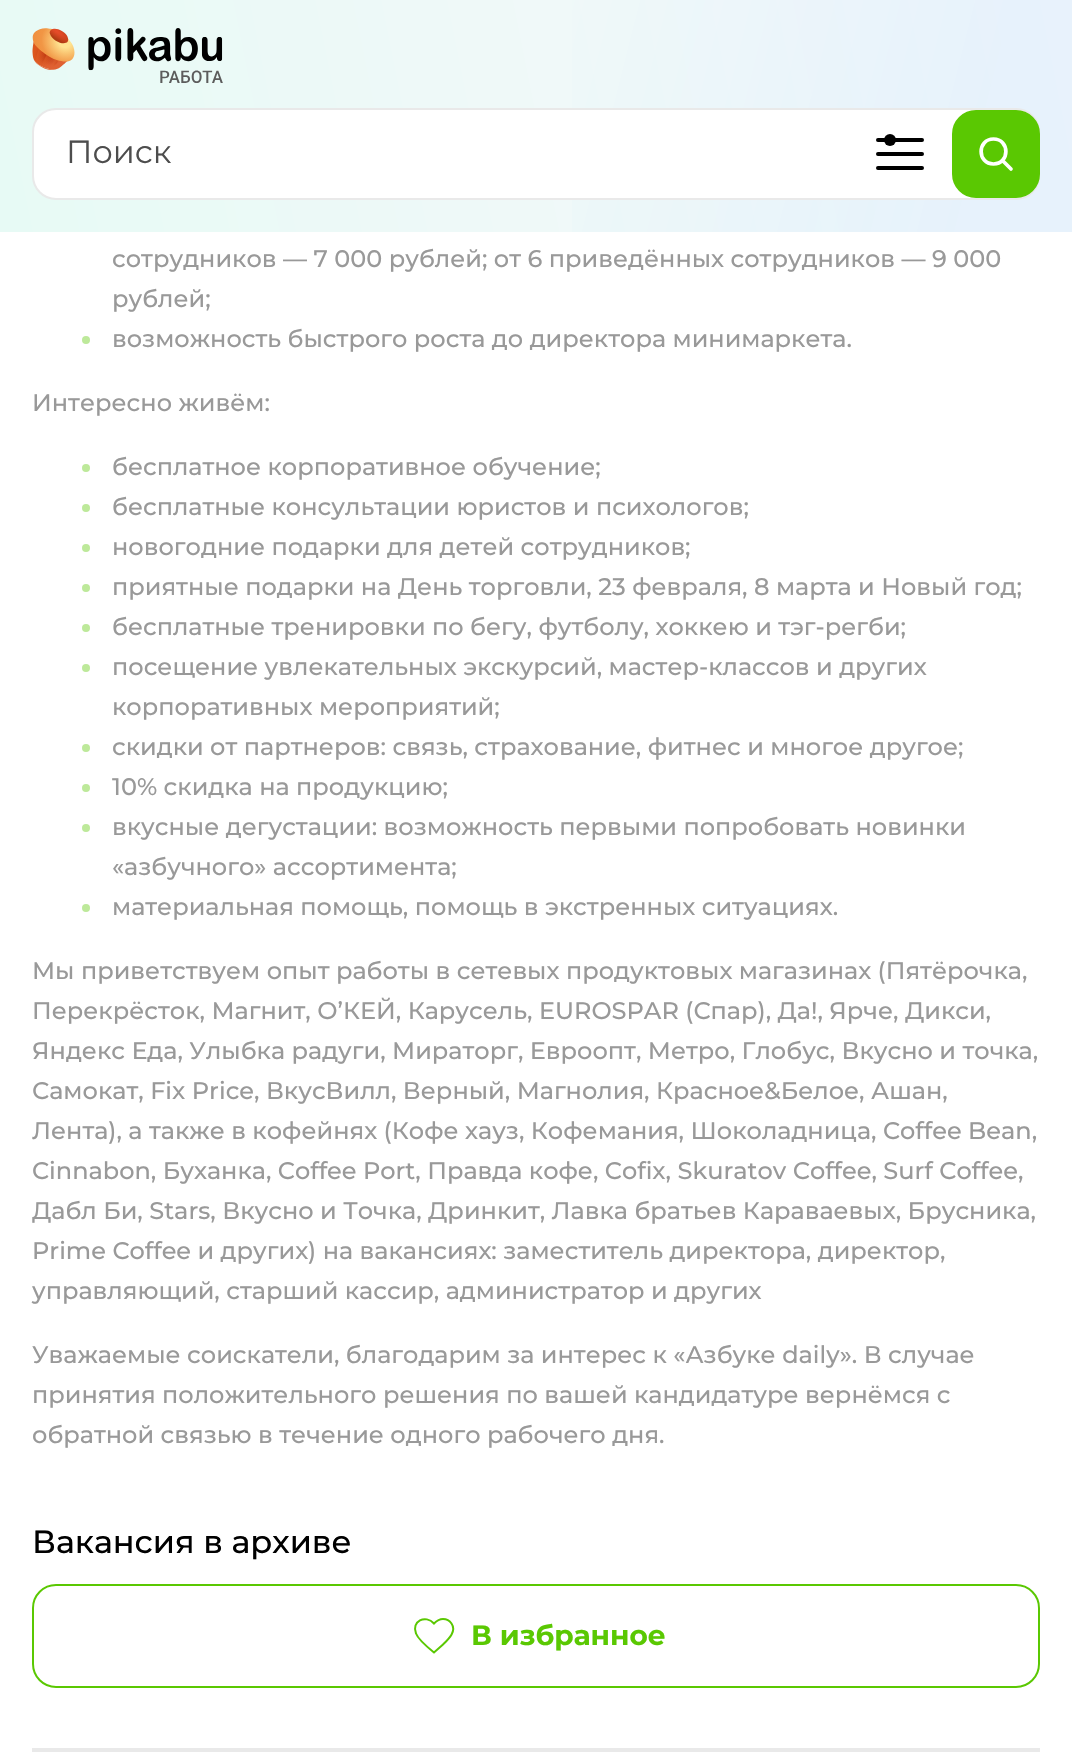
void draw(SkCanvas* canvas) {
	SkPaint fill;
	fill.setAntiAlias(true);
	auto makeFont = [&](const char* family, int weight, float size, bool italic = false) {
		SkFontStyle style(weight, SkFontStyle::kNormal_Width,
			italic ? SkFontStyle::kItalic_Slant : SkFontStyle::kUpright_Slant);
		SkFont result(fontMgr->matchFamilyStyle(family, style), size);
		result.setSubpixel(true);
		return result;
	};
	auto text = [&](const char* s, float x, float y, const SkFont& font) {
		canvas->drawString(s, x, y, font, fill);
	};
	auto box = [&](float l, float t, float r, float b) {
		canvas->drawRect(SkRect::MakeLTRB(l, t, r, b), fill);
	};
	auto picture = [&](const char* path, float l, float t, float r, float b) {
		auto image = SkImages::DeferredFromEncodedData(SkData::MakeFromFileName(path));
		canvas->drawImageRect(image, SkRect::MakeLTRB(l, t, r, b), SkSamplingOptions());
	};
	canvas->clear(0xFFFFFFFF);
	{
		const SkColor colors[] = {0xFFE7FAF5, 0xFFF8F8FC};
		const float stops[] = {0, 1};
		const SkPoint ends[] = {{-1.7f, 224}, {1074, 8}};
		fill.setShader(SkGradientShader::MakeLinear(ends, colors, stops, 2, SkTileMode::kClamp));
		fill.setAlpha(255);
	}
	box(0, 0, 1072, 232);
	{
		const SkColor colors[] = {0x33AADBFF, 0x00AADBFF};
		const float stops[] = {0.1f, 0.52f};
		const SkPoint ends[] = {{1067, 250}, {4.6f, -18}};
		fill.setShader(SkGradientShader::MakeLinear(ends, colors, stops, 2, SkTileMode::kClamp));
		fill.setAlpha(255);
	}
	box(572, 0, 1072, 232);
	picture("image0.png", 32, 28, 223, 83);
	fill.setShader(nullptr);
	fill.setColor(0xFFFFFFFF);
	canvas->drawRoundRect(SkRect::MakeLTRB(33, 109, 1039, 199), 23, 23, fill);
	fill.setStyle(SkPaint::kStroke_Style);
	fill.setStrokeWidth(2);
	fill.setColor(0xFFE9E9E9);
	canvas->drawRoundRect(SkRect::MakeLTRB(33, 109, 1039, 199), 23, 23, fill);
	fill.setStrokeWidth(4);
	fill.setStrokeCap(SkPaint::kRound_Cap);
	fill.setColor(0xFF000000);
	canvas->drawPath(SkPathBuilder().moveTo(878, 140).lineTo(922, 140).moveTo(878, 154).lineTo(922, 154).moveTo(878, 168).lineTo(922, 168).detach(), fill);
	fill.setStyle(SkPaint::kFill_Style);
	canvas->drawCircle(890, 140, 6, fill);
	fill.setColor(0xFF5AC802);
	canvas->drawRoundRect(SkRect::MakeLTRB(953, 111, 1039, 197), 23, 23, fill);
	fill.setStyle(SkPaint::kStroke_Style);
	fill.setStrokeWidth(2);
	fill.setStrokeCap(SkPaint::kButt_Cap);
	canvas->drawRoundRect(SkRect::MakeLTRB(953, 111, 1039, 197), 23, 23, fill);
	fill.setStrokeWidth(3.7f);
	fill.setStrokeCap(SkPaint::kRound_Cap);
	fill.setStrokeJoin(SkPaint::kRound_Join);
	fill.setColor(0xFFFFFFFF);
	canvas->drawPath(SkPathBuilder().moveTo(993.5f, 164).cubicTo(1010, 164, 1010, 139, 993.5f, 139).cubicTo(977, 139, 977, 164, 993.5f, 164).close().moveTo(1011, 169).lineTo(1003.5f, 161.5f).detach(), fill);
	fill.setStyle(SkPaint::kFill_Style);
	fill.setColor(0xFFBDE99A);
	canvas->drawCircle(86, 340, 4, fill);
	canvas->drawCircle(86, 468, 4, fill);
	canvas->drawCircle(86, 508, 4, fill);
	canvas->drawCircle(86, 548, 4, fill);
	canvas->drawCircle(86, 588, 4, fill);
	canvas->drawCircle(86, 628, 4, fill);
	canvas->drawCircle(86, 668, 4, fill);
	canvas->drawCircle(86, 748, 4, fill);
	canvas->drawCircle(86, 788, 4, fill);
	canvas->drawCircle(86, 828, 4, fill);
	canvas->drawCircle(86, 908, 4, fill);
	fill.setStyle(SkPaint::kStroke_Style);
	fill.setStrokeWidth(2);
	fill.setStrokeCap(SkPaint::kButt_Cap);
	fill.setStrokeJoin(SkPaint::kMiter_Join);
	fill.setColor(0xFF5AC802);
	canvas->drawRoundRect(SkRect::MakeLTRB(33, 1585, 1039, 1687), 23, 23, fill);
	canvas->drawPath(SkPathBuilder().moveTo(443, 1619).cubicTo(446.5f, 1619, 449.5f, 1620.5f, 451.5f, 1623.5f).cubicTo(457, 1631.5f, 448, 1639.5f, 443, 1644.5f).lineTo(434, 1652.5f).cubicTo(428.5f, 1648, 418.5f, 1640, 416, 1633.5f).cubicTo(411, 1621.5f, 425.5f, 1614, 434, 1623.5f).cubicTo(436.5f, 1621, 439, 1619, 443, 1619).close().detach(), fill);
	fill.setStyle(SkPaint::kFill_Style);
	fill.setColor(0xFFE9E9E9);
	box(32, 1748, 1040, 1752);
	auto font1 = makeFont("Montserrat", 400, 32);
	fill.setColor(0xFF4D4D4D);
	text("Поиск", 66, 163, font1);
	auto font2 = makeFont("Montserrat", 500, 24);
	fill.setColor(0xFF999999);
	text("сотрудников — 7 000 рублей; от 6 приведённых сотрудников — 9 000", 112, 267, font2);
	text("рублей;", 112, 307, font2);
	text("возможность быстрого роста до директора минимаркета.", 112, 347, font2);
	text("Интересно живём:", 32, 411, font2);
	text("бесплатное корпоративное обучение;", 112, 475, font2);
	text("бесплатные консультации юристов и психологов;", 112, 515, font2);
	text("новогодние подарки для детей сотрудников;", 112, 555, font2);
	text("приятные подарки на День торговли, 23 февраля, 8 марта и Новый год;", 112, 595, font2);
	text("бесплатные тренировки по бегу, футболу, хоккею и тэг-регби;", 112, 635, font2);
	text("посещение увлекательных экскурсий, мастер-классов и других", 112, 675, font2);
	text("корпоративных мероприятий;", 112, 715, font2);
	text("скидки от партнеров: связь, страхование, фитнес и многое другое;", 112, 755, font2);
	text("10% скидка на продукцию;", 112, 795, font2);
	text("вкусные дегустации: возможность первыми попробовать новинки", 112, 835, font2);
	text("«азбучного» ассортимента;", 112, 875, font2);
	text("материальная помощь, помощь в экстренных ситуациях.", 112, 915, font2);
	text("Мы приветствуем опыт работы в сетевых продуктовых магазинах (Пятёрочка,", 32, 979, font2);
	text("Перекрёсток, Магнит, О’КЕЙ, Карусель, EUROSPAR (Спар), Да!, Ярче, Дикси,", 32, 1019, font2);
	text("Яндекс Еда, Улыбка радуги, Мираторг, Евроопт, Метро, Глобус, Вкусно и точка,", 32, 1059, font2);
	text("Самокат, Fix Price, ВкусВилл, Верный, Магнолия, Красное&Белое, Ашан,", 32, 1099, font2);
	text("Лента), а также в кофейнях (Кофе хауз, Кофемания, Шоколадница, Coffee Bean,", 32, 1139, font2);
	text("Cinnabon, Буханка, Coffee Port, Правда кофе, Cofix, Skuratov Сoffee, Surf Coffee,", 32, 1179, font2);
	text("Дабл Би, Stars, Вкусно и Точка, Дринкит, Лавка братьев Караваевых, Брусника,", 32, 1219, font2);
	text("Prime Coffee и других) на вакансиях: заместитель директора, директор,", 32, 1259, font2);
	text("управляющий, старший кассир, администратор и других", 32, 1299, font2);
	text("Уважаемые соискатели, благодарим за интерес к «Азбуке daily». В случае", 32, 1363, font2);
	text("принятия положительного решения по вашей кандидатуре вернёмся с", 32, 1403, font2);
	text("обратной связью в течение одного рабочего дня.", 32, 1443, font2);
	auto font3 = makeFont("Montserrat", 500, 32);
	fill.setColor(0xFF000000);
	text("Вакансия в архиве", 32, 1553, font3);
	auto font4 = makeFont("Montserrat", 700, 28);
	fill.setColor(0xFF5AC802);
	text("В избранное", 471, 1645, font4);
}
